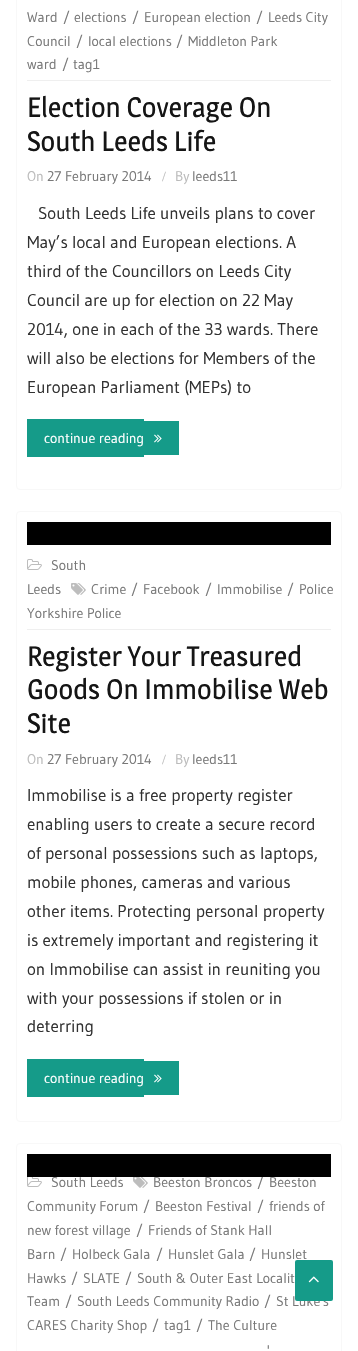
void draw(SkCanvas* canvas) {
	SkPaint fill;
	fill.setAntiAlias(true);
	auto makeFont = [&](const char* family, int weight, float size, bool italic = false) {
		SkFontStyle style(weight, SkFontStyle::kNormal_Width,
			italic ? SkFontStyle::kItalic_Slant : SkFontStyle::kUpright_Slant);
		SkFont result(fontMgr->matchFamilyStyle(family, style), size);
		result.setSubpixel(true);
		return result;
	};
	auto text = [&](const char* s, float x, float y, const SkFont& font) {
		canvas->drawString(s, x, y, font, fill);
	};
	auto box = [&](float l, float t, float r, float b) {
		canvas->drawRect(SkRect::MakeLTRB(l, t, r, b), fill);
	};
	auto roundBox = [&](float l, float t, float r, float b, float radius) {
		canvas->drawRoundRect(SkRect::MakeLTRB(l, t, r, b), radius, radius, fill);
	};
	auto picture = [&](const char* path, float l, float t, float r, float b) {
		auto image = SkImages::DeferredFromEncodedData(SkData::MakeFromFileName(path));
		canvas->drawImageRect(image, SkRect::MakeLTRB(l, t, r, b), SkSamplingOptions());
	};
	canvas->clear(0xFFFFFFFF);
	fill.setStyle(SkPaint::kStroke_Style);
	fill.setStrokeWidth(1);
	fill.setColor(0xFFF8F8F8);
	canvas->drawRoundRect(SkRect::MakeLTRB(16.5f, -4.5f, 341.5f, 489.5f), 3.5f, 3.5f, fill);
	fill.setStyle(SkPaint::kFill_Style);
	fill.setColor(0xFFEFEFEF);
	box(27, 80, 331, 81);
	fill.setColor(0xFF159B89);
	box(27, 419, 144, 457);
	box(144, 421, 179, 455);
	picture("image0.png", 154, 434, 162, 443);
	fill.setStyle(SkPaint::kStroke_Style);
	fill.setColor(0xFFF8F8F8);
	canvas->drawRoundRect(SkRect::MakeLTRB(16.5f, 511.5f, 341.5f, 1121.5f), 3.5f, 3.5f, fill);
	fill.setStyle(SkPaint::kFill_Style);
	fill.setColor(0xFF000000);
	box(27, 522, 331, 545);
	fill.setColor(0xFFEFEFEF);
	box(27, 629, 331, 630);
	picture("image1.png", 27, 559, 42, 570);
	picture("image2.png", 71, 583, 86, 595);
	fill.setColor(0xFF159B89);
	box(27, 1059, 144, 1097);
	box(144, 1061, 179, 1095);
	picture("image0.png", 154, 1074, 162, 1083);
	fill.setStyle(SkPaint::kStroke_Style);
	fill.setColor(0xFFF8F8F8);
	canvas->drawRoundRect(SkRect::MakeLTRB(16.5f, 1143.5f, 341.5f, 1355.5f), 3.5f, 3.5f, fill);
	picture("image3.png", 27, 1177, 42, 1187);
	picture("image4.png", 133, 1177, 148, 1188);
	auto font1 = makeFont("Gudea", 400, 14);
	fill.setStyle(SkPaint::kFill_Style);
	fill.setColor(0xFF787878);
	text("Ward", 27, 22, font1);
	text("/", 63, 22, font1);
	text("elections", 74, 22, font1);
	text("/", 132, 22, font1);
	text("European election", 144, 22, font1);
	text("/", 256, 22, font1);
	text("Leeds City", 268, 22, font1);
	text("Council", 27, 46, font1);
	text("/", 76, 46, font1);
	text("local elections", 88, 46, font1);
	text("/", 176, 46, font1);
	text("Middleton Park", 188, 46, font1);
	text("ward", 27, 69, font1);
	text("/", 62, 69, font1);
	text("tag1", 73, 69, font1);
	auto font2 = makeFont("Magra", 400, 28);
	fill.setColor(0xFF151515);
	text("Election Coverage On", 27, 117, font2);
	text("South Leeds Life", 27, 151, font2);
	fill.setColor(0xFFBBBBBB);
	text("On", 27, 181, font1);
	fill.setColor(0xFF787878);
	text("27 February 2014", 47, 181, font1);
	auto font3 = makeFont("Liberation Serif", 400, 14);
	fill.setColor(0xFFBBBBBB);
	text("/", 162, 181, font3);
	text("By", 175, 181, font1);
	fill.setColor(0xFF787878);
	text("leeds11", 192, 181, font1);
	auto font4 = makeFont("Gudea", 400, 17);
	fill.setColor(0xFF313131);
	text("South Leeds Life unveils plans to cover", 38, 219, font4);
	text("May’s local and European elections. A", 27, 248, font4);
	text("third of the Councillors on Leeds City", 27, 277, font4);
	text("Council are up for election on 22 May", 27, 306, font4);
	text("2014, one in each of the 33 wards. There", 27, 335, font4);
	text("will also be elections for Members of the", 27, 364, font4);
	text("European Parliament (MEPs) to", 27, 393, font4);
	fill.setColor(0xFFFFFFFF);
	text("continue reading", 44, 443, font1);
	fill.setColor(0xFF787878);
	text("South", 51, 570, font1);
	text("Leeds", 27, 594, font1);
	text("Crime", 91, 594, font1);
	text("/", 131, 594, font1);
	text("Facebook", 143, 594, font1);
	text("/", 205, 594, font1);
	text("Immobilise", 217, 594, font1);
	text("/", 287, 594, font1);
	text("Police", 299, 594, font1);
	text("Yorkshire Police", 27, 618, font1);
	fill.setColor(0xFF151515);
	text("Register Your Treasured", 27, 666, font2);
	text("Goods On Immobilise Web", 27, 699, font2);
	text("Site", 27, 733, font2);
	fill.setColor(0xFFBBBBBB);
	text("On", 27, 764, font1);
	fill.setColor(0xFF787878);
	text("27 February 2014", 47, 764, font1);
	fill.setColor(0xFFBBBBBB);
	text("/", 162, 764, font3);
	text("By", 175, 764, font1);
	fill.setColor(0xFF787878);
	text("leeds11", 192, 764, font1);
	fill.setColor(0xFF313131);
	text("Immobilise is a free property register", 27, 801, font4);
	text("enabling users to create a secure record", 27, 830, font4);
	text("of personal possessions such as laptops,", 27, 859, font4);
	text("mobile phones, cameras and various", 27, 888, font4);
	text("other items. Protecting personal property", 27, 917, font4);
	text("is extremely important and registering it", 27, 946, font4);
	text("on Immobilise can assist in reuniting you", 27, 975, font4);
	text("with your possessions if stolen or in", 27, 1004, font4);
	text("deterring", 27, 1032, font4);
	fill.setColor(0xFFFFFFFF);
	text("continue reading", 44, 1083, font1);
	fill.setColor(0xFF787878);
	text("South Leeds", 51, 1187, font1);
	text("Beeston Broncos", 153, 1187, font1);
	text("/", 257, 1187, font1);
	fill.setColor(0xFF000000);
	box(27, 1154, 331, 1177);
	fill.setColor(0xFF787878);
	text("Beeston", 269, 1187, font1);
	text("Community Forum", 27, 1211, font1);
	text("/", 143, 1211, font1);
	text("Beeston Festival", 155, 1211, font1);
	text("/", 257, 1211, font1);
	text("friends of", 269, 1211, font1);
	text("new forest village", 27, 1235, font1);
	text("/", 136, 1235, font1);
	text("Friends of Stank Hall", 148, 1235, font1);
	text("Barn", 27, 1259, font1);
	text("/", 60, 1259, font1);
	text("Holbeck Gala", 72, 1259, font1);
	text("/", 156, 1259, font1);
	text("Hunslet Gala", 168, 1259, font1);
	text("/", 249, 1259, font1);
	text("Hunslet", 261, 1259, font1);
	text("Hawks", 27, 1283, font1);
	text("/", 71, 1283, font1);
	text("SLATE", 83, 1283, font1);
	text("/", 125, 1283, font1);
	text("South & Outer East Localit", 137, 1283, font1);
	text("Team", 27, 1306, font1);
	text("/", 65, 1306, font1);
	text("South Leeds Community Radio", 77, 1306, font1);
	text("/", 264, 1306, font1);
	text("St Luke's", 276, 1306, font1);
	text("CARES Charity Shop", 27, 1330, font1);
	text("/", 152, 1330, font1);
	text("tag1", 164, 1330, font1);
	text("/", 196, 1330, font1);
	text("The Culture", 208, 1330, font1);
	text("'", 267, 1354, font1);
	fill.setColor(0xFF159B89);
	roundBox(295, 1260, 333, 1301, 2);
	picture("image5.png", 308, 1276, 319, 1283);
}
